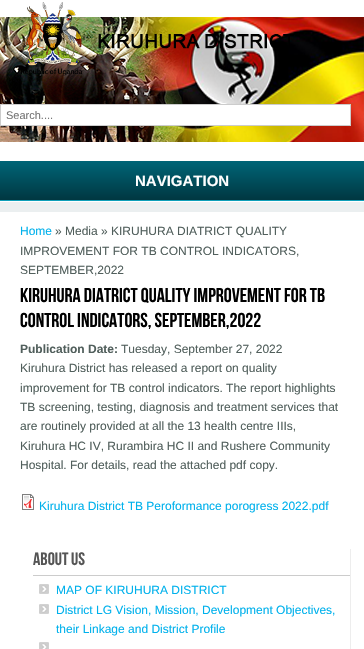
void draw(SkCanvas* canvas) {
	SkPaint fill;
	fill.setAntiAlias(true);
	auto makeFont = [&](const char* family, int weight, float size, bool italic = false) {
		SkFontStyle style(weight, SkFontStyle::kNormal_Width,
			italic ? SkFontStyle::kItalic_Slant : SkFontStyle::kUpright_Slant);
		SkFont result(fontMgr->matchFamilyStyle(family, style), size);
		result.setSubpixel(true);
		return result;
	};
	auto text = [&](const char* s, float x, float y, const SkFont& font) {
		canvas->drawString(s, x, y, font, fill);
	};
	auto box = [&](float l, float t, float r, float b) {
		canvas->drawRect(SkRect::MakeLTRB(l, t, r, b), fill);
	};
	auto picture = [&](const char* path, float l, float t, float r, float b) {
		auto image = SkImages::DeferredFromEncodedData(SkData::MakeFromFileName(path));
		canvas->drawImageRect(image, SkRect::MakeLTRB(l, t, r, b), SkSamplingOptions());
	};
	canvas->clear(0xFFEBEFF0);
	fill.setColor(0xFFFFFFFF);
	box(0, 0, 364, 161);
	picture("image0.png", 0, 17, 364, 142);
	picture("image1.png", 21, 2, 294, 76);
	canvas->drawRect(SkRect::MakeLTRB(0.5f, 104.5f, 350.5f, 125.5f), fill);
	fill.setStyle(SkPaint::kStroke_Style);
	fill.setStrokeWidth(1);
	fill.setColor(0xFFCCCCCC);
	canvas->drawRect(SkRect::MakeLTRB(0.5f, 104.5f, 350.5f, 125.5f), fill);
	fill.setStyle(SkPaint::kFill_Style);
	fill.setColor(0xFFFFFFFF);
	box(0, 201, 364, 202);
	{
		const SkColor colors[] = {0xFF006577, 0xFF003741};
		const float stops[] = {0, 1};
		const SkPoint ends[] = {{182, 161}, {182, 200}};
		fill.setShader(SkGradientShader::MakeLinear(ends, colors, stops, 2, SkTileMode::kClamp));
		fill.setAlpha(255);
	}
	box(0, 161, 364, 200);
	fill.setShader(nullptr);
	fill.setColor(0xFF0E9FB9);
	box(0, 200, 364, 201);
	fill.setColor(0xFFFFFFFF);
	box(0, 212, 364, 649);
	picture("image2.png", 22, 494, 34, 510);
	fill.setColor(0xFFEDEDED);
	box(350, 549, 351, 649);
	fill.setColor(0xFFCCCCCC);
	box(33, 575, 350, 576);
	picture("image3.png", 39, 584, 49, 594);
	picture("image3.png", 39, 604, 49, 614);
	picture("image4.png", 39, 642, 49, 649);
	auto font1 = makeFont("Liberation Sans", 400, 11);
	fill.setColor(0xFF757575);
	text("Search....", 6, 119, font1);
	auto font2 = makeFont("Liberation Sans", 700, 15);
	fill.setColor(0xFFFFFFFF);
	text("NAVIGATION", 135, 186, font2);
	auto font3 = makeFont("Liberation Sans", 400, 12);
	fill.setColor(0xFF00B1EC);
	text("Home", 20, 235, font3);
	fill.setColor(0xFF515F5C);
	text("» Media » KIRUHURA DIATRICT QUALITY", 55, 235, font3);
	text("IMPROVEMENT FOR TB CONTROL INDICATORS,", 20, 255, font3);
	text("SEPTEMBER,2022", 20, 274, font3);
	auto font4 = makeFont("Bebas Neue", 400, 20);
	fill.setColor(0xFF000000);
	text("KIRUHURA DIATRICT QUALITY IMPROVEMENT FOR TB", 20, 302, font4);
	text("CONTROL INDICATORS, SEPTEMBER,2022", 20, 327, font4);
	auto font5 = makeFont("Liberation Sans", 700, 12);
	fill.setColor(0xFF515F5C);
	text("Publication Date:", 20, 353, font5);
	text("Tuesday, September 27, 2022", 121, 353, font3);
	text("Kiruhura District has released a report on quality", 20, 372, font3);
	text("improvement for TB control indicators. The report highlights", 20, 392, font3);
	text("TB screening, testing, diagnosis and treatment services that", 20, 411, font3);
	text("are routinely provided at all the 13 health centre IIIs,", 20, 430, font3);
	text("Kiruhura HC IV, Rurambira HC II and Rushere Community", 20, 450, font3);
	text("Hospital. For details, read the attached pdf copy.", 20, 469, font3);
	fill.setColor(0xFF00B1EC);
	text("Kiruhura District TB Peroformance porogress 2022.pdf", 39, 510, font3);
	auto font6 = makeFont("Bebas Neue", 400, 18);
	fill.setColor(0xFF555555);
	text("ABOUT US", 33, 565, font6);
	fill.setColor(0xFF00B1EC);
	text("MAP OF KIRUHURA DISTRICT", 56, 594, font3);
	text("District LG Vision, Mission, Development Objectives,", 56, 614, font3);
	text("their Linkage and District Profile", 56, 633, font3);
}
